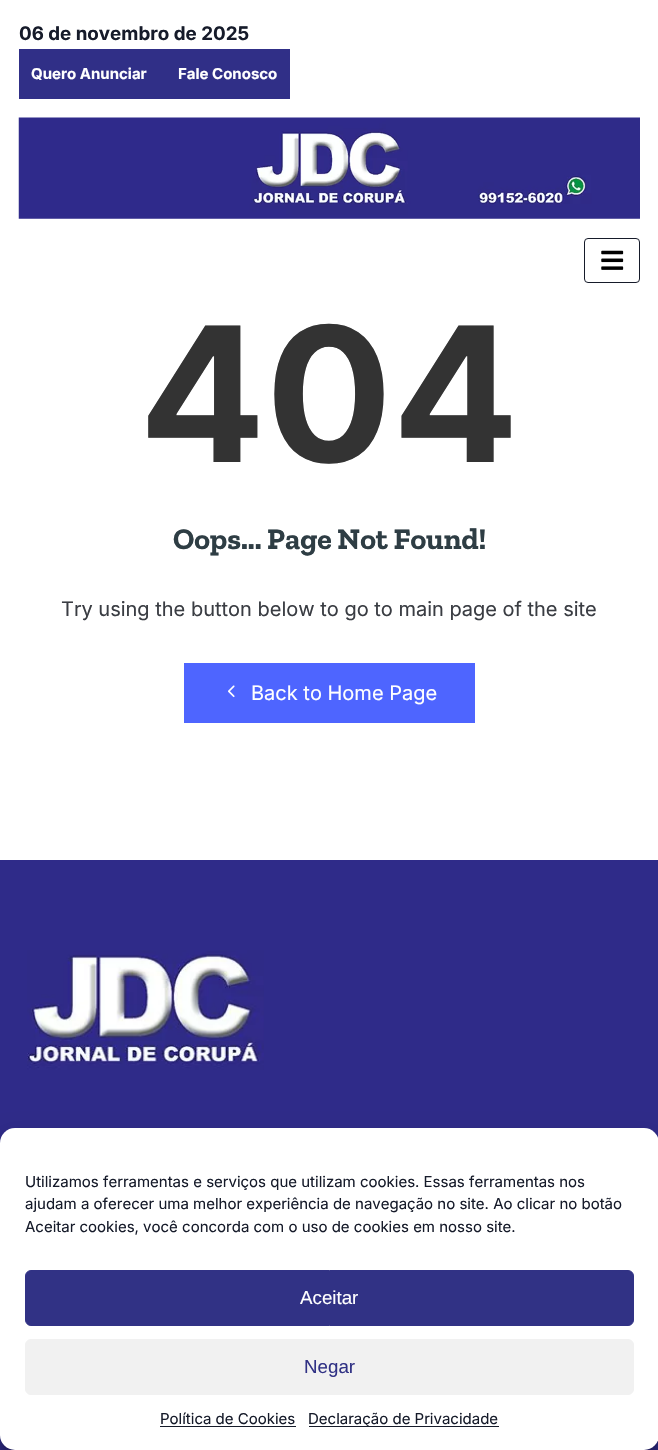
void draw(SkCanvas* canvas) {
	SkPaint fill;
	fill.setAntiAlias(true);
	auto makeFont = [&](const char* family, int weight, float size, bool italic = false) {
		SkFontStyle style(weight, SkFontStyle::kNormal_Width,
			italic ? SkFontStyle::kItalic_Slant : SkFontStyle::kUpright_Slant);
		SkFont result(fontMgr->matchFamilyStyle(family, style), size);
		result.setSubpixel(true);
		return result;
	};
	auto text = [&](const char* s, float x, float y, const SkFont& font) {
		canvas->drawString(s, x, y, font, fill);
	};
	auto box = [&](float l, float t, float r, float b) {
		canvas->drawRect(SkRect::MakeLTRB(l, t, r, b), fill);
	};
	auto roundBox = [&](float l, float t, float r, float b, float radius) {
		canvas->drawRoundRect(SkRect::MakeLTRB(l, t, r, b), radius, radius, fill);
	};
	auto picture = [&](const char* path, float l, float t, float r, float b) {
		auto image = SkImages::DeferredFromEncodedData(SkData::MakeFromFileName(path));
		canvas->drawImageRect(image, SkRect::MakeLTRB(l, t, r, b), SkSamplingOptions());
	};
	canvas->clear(0xFFFFFFFF);
	fill.setColor(0xFF302F87);
	box(19, 49, 290, 99);
	picture("image0.png", 18, 117, 640, 219);
	fill.setStyle(SkPaint::kStroke_Style);
	fill.setStrokeWidth(1);
	fill.setColor(0xFF161B2A);
	canvas->drawRoundRect(SkRect::MakeLTRB(584.5f, 238.5f, 639.5f, 282.5f), 3.5f, 3.5f, fill);
	picture("image1.png", 601, 250, 624, 270);
	fill.setStyle(SkPaint::kFill_Style);
	fill.setColor(0xFF4E65FF);
	box(184, 663, 475, 723);
	picture("image2.png", 228, 685, 235, 698);
	fill.setColor(0xFF2F2B89);
	box(0, 860, 658, 1450);
	picture("image3.png", 27, 950, 264, 1070);
	fill.setColor(0x3B000000);
	fill.setMaskFilter(SkMaskFilter::MakeBlur(kNormal_SkBlurStyle, 4));
	canvas->drawRoundRect(SkRect::MakeLTRB(0, 1135, 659, 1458), 15, 15, fill);
	fill.setMaskFilter(nullptr);
	fill.setColor(0x30000000);
	fill.setMaskFilter(SkMaskFilter::MakeBlur(kNormal_SkBlurStyle, 12.5f));
	canvas->drawRoundRect(SkRect::MakeLTRB(0, 1140, 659, 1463), 15, 15, fill);
	fill.setMaskFilter(nullptr);
	fill.setColor(0xFFFFFFFF);
	roundBox(0, 1128, 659, 1450, 15);
	fill.setColor(0xFF313285);
	canvas->drawRoundRect(SkRect::MakeLTRB(25.5f, 1270.5f, 633.5f, 1325.5f), 5.5f, 5.5f, fill);
	fill.setStyle(SkPaint::kStroke_Style);
	canvas->drawRoundRect(SkRect::MakeLTRB(25.5f, 1270.5f, 633.5f, 1325.5f), 5.5f, 5.5f, fill);
	fill.setStyle(SkPaint::kFill_Style);
	fill.setColor(0xFFF1F1F1);
	canvas->drawRoundRect(SkRect::MakeLTRB(25.5f, 1339.5f, 633.5f, 1394.5f), 5.5f, 5.5f, fill);
	fill.setStyle(SkPaint::kStroke_Style);
	canvas->drawRoundRect(SkRect::MakeLTRB(25.5f, 1339.5f, 633.5f, 1394.5f), 5.5f, 5.5f, fill);
	fill.setStyle(SkPaint::kFill_Style);
	fill.setColor(0xFF161B2A);
	box(160, 1426, 296, 1427);
	box(309, 1426, 499, 1427);
	auto font1 = makeFont("Inter", 700, 18.75f);
	text("06 de novembro de 2025", 19, 40, font1);
	auto font2 = makeFont("Inter", 700, 15);
	fill.setColor(0xFFFFFFFF);
	text("Quero Anunciar", 31, 79, font2);
	text("Fale Conosco", 178, 79, font2);
	auto font3 = makeFont("Inter", 700, 187.5f);
	fill.setColor(0xFF333333);
	text("404", 139, 462, font3);
	auto font4 = makeFont("Zilla Slab", 700, 30);
	fill.setColor(0xFF2E3D44);
	text("Oops... Page Not Found!", 173, 549, font4);
	auto font5 = makeFont("Inter", 400, 20);
	fill.setColor(0xFF3A3D43);
	text("Try using the button below to go to main page of the site", 61, 616, font5);
	fill.setColor(0xFFFFFFFF);
	text("Back to Home Page", 251, 700, font5);
	auto font6 = makeFont("Inter", 400, 15);
	fill.setColor(0xFF161B2A);
	text("Utilizamos ferramentas e serviços que utilizam cookies. Essas ferramentas nos", 25, 1187, font6);
	text("ajudam a oferecer uma melhor experiência de navegação no site. Ao clicar no botão", 25, 1209, font6);
	text("Aceitar cookies, você concorda com o uso de cookies em nosso site.", 25, 1232, font6);
	auto font7 = makeFont("Liberation Sans", 400, 18.75f);
	fill.setColor(0xFFFFFFFF);
	text("Aceitar", 300, 1304, font7);
	fill.setColor(0xFF313285);
	text("Negar", 304, 1373, font7);
	fill.setColor(0xFF161B2A);
	text("Política de Cookies", 160, 1424, font6);
	text("Declaração de Privacidade", 308, 1424, font6);
}
